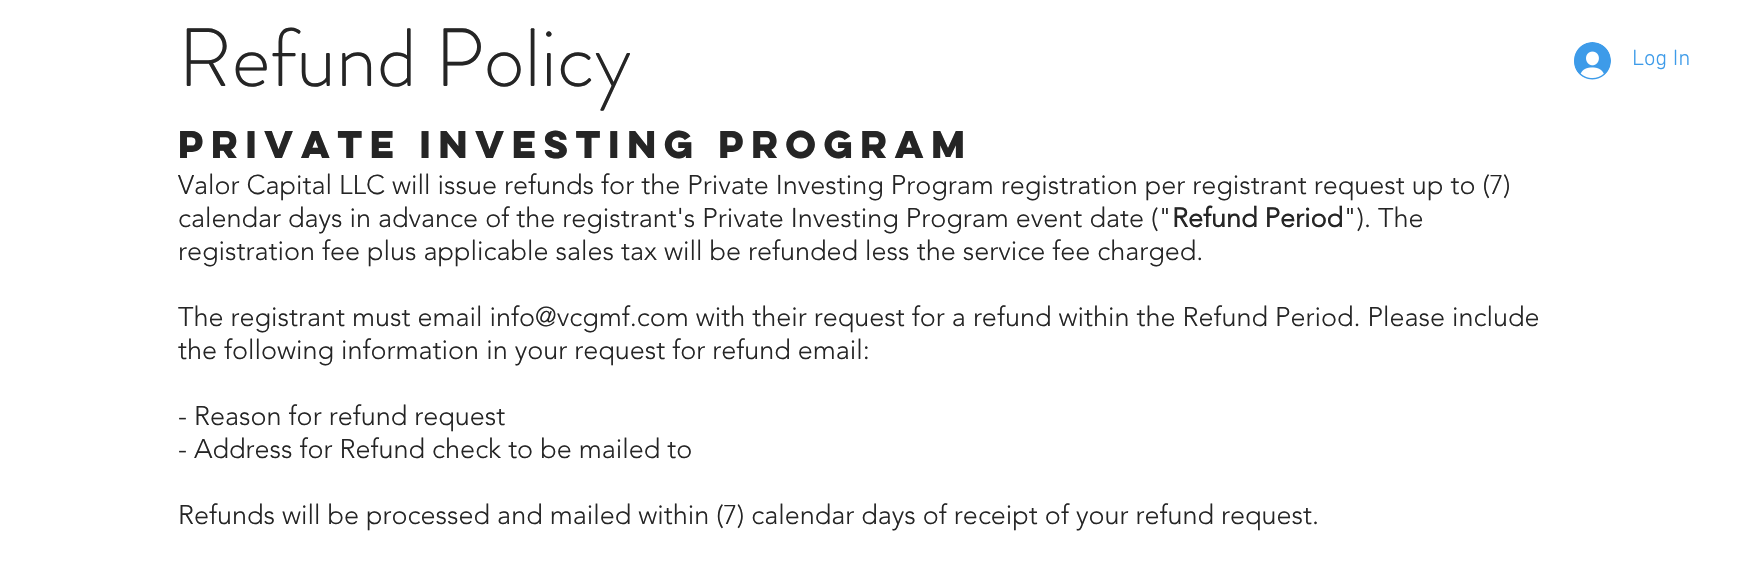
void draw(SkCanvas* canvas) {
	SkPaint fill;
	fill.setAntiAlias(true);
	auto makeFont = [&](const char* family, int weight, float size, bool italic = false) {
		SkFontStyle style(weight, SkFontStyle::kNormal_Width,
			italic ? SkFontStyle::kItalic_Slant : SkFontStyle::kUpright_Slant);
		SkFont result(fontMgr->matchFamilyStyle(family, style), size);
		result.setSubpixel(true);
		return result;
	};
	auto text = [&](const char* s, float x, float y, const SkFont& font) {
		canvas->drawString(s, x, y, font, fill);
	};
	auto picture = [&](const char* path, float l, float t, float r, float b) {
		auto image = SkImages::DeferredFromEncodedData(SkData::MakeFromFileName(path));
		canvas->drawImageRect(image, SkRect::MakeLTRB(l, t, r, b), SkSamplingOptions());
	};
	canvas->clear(0xFFFFFFFF);
	picture("image0.png", 1574, 42, 1611, 80);
	auto font1 = makeFont("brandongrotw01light", 300, 82.5f);
	fill.setColor(0xFF252525);
	text("Refund Policy", 178, 86, font1);
	auto font2 = makeFont("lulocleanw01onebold", 700, 34.5f);
	text("Private investing program", 178, 158, font2);
	auto font3 = makeFont("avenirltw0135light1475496", 300, 27);
	text("Valor Capital LLC will issue refunds for the Private Investing Program registration per registrant request up to (7)", 178, 194, font3);
	text("calendar days in advance of the registrant's Private Investing Program event date (\"", 178, 227, font3);
	auto font4 = makeFont("avenirltw0135light1475496", 700, 27);
	text("Refund Period", 1172, 227, font4);
	text("\"). The", 1343, 227, font3);
	text("registration fee plus applicable sales tax will be refunded less the service fee charged.", 178, 260, font3);
	text("The registrant must email info@vcgmf.com with their request for a refund within the Refund Period. Please include", 178, 326, font3);
	text("the following information in your request for refund email:", 178, 359, font3);
	text("- Reason for refund request", 178, 425, font3);
	text("- Address for Refund check to be mailed to", 178, 458, font3);
	text("Refunds will be processed and mailed within (7) calendar days of receipt of your refund request.", 178, 524, font3);
	auto font5 = makeFont("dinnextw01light", 300, 22.5f);
	fill.setColor(0xFF3D9BE9);
	text("Log In", 1632, 65, font5);
}
